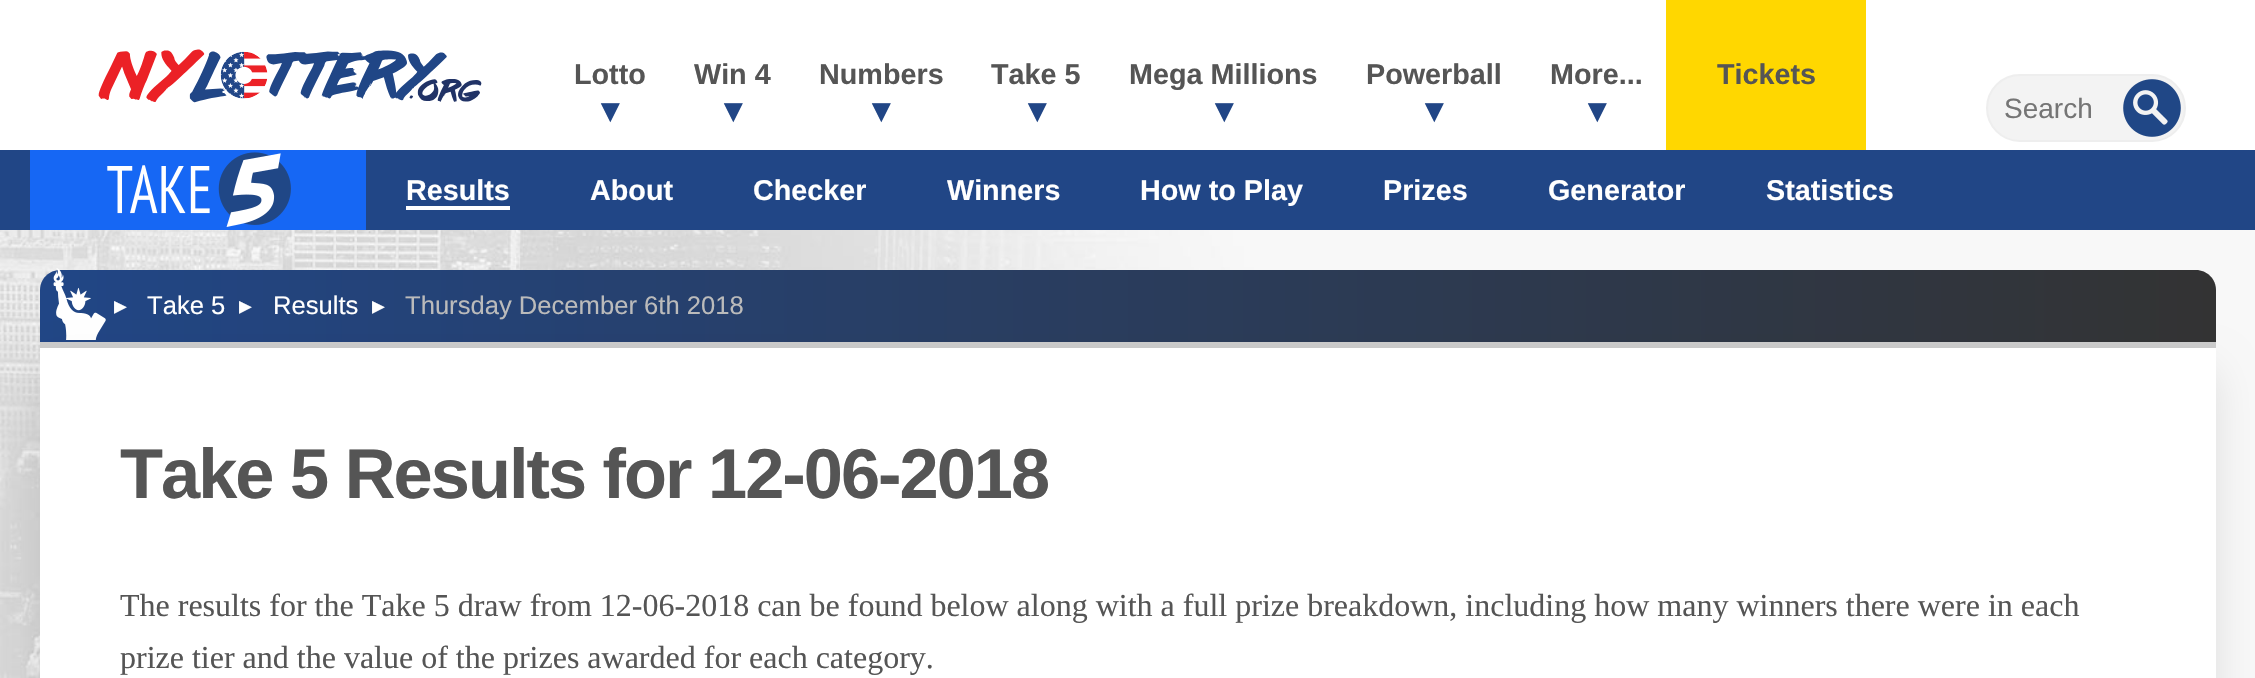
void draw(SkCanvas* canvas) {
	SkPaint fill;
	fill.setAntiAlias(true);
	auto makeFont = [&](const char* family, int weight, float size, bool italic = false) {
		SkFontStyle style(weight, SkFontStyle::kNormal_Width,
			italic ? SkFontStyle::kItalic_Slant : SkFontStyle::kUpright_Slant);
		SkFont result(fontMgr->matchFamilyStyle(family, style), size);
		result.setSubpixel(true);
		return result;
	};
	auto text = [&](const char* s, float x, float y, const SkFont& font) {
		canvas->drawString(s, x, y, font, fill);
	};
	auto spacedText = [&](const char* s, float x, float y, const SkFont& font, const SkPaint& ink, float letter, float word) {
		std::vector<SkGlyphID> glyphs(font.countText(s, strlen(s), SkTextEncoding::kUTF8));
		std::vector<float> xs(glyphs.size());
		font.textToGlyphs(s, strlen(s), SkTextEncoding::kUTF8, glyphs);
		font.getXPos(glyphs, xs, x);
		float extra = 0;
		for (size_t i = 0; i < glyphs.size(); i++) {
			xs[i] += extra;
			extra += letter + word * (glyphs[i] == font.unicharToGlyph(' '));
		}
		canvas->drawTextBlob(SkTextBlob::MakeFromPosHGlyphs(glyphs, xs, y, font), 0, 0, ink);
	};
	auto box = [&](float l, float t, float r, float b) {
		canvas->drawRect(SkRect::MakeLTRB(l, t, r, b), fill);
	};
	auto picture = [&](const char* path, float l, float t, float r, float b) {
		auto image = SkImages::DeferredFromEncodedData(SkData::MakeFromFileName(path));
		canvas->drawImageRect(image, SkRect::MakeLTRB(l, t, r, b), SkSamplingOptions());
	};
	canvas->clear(0xFFF8F8F8);
	picture("image0.png", 0, 230, 1349, 678);
	fill.setColor(0xFFFFFFFF);
	box(0, 0, 2255, 150);
	picture("image1.png", 98, 49, 482, 103);
	fill.setColor(0xFFFFD700);
	box(1666, 0, 1866, 150);
	fill.setColor(0xFFF3F3F3);
	canvas->drawRoundRect(SkRect::MakeLTRB(1987, 75, 2185, 141), 33, 33, fill);
	fill.setStyle(SkPaint::kStroke_Style);
	fill.setStrokeWidth(2);
	fill.setColor(0xFFEEEEEE);
	canvas->drawRoundRect(SkRect::MakeLTRB(1987, 75, 2185, 141), 33, 33, fill);
	picture("image2.png", 2123, 79, 2181, 137);
	fill.setStyle(SkPaint::kFill_Style);
	fill.setColor(0xFF214686);
	box(0, 150, 2255, 230);
	fill.setColor(0xFF1667F4);
	box(30, 150, 366, 230);
	picture("image3.png", 107, 152, 291, 227);
	fill.setColor(0xFFFFFFFF);
	box(406, 206, 510, 210);
	{
		const SkColor colors[] = {0xFF214686, 0xFF333333};
		const float stops[] = {0, 1};
		const SkPoint ends[] = {{40, 306}, {2216, 306}};
		fill.setShader(SkGradientShader::MakeLinear(ends, colors, stops, 2, SkTileMode::kClamp));
		fill.setAlpha(255);
	}
	canvas->drawPath(SkPathBuilder().moveTo(60, 270).lineTo(2196, 270).cubicTo(2207, 270, 2216, 279, 2216, 290).lineTo(2216, 348).lineTo(40, 348).lineTo(40, 290).cubicTo(40, 279, 49, 270, 60, 270).close().detach(), fill);
	fill.setShader(nullptr);
	fill.setColor(0xFFCCCCCC);
	box(40, 342, 2216, 348);
	picture("image4.png", 53, 268, 106, 340);
	fill.setColor(0x1A000000);
	fill.setMaskFilter(SkMaskFilter::MakeBlur(kNormal_SkBlurStyle, 20));
	canvas->drawRoundRect(SkRect::MakeLTRB(40, 368, 2216, 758), 20, 20, fill);
	fill.setMaskFilter(nullptr);
	fill.setColor(0xFFFFFFFF);
	box(40, 348, 2216, 678);
	auto font1 = makeFont("Liberation Sans", 700, 28.75f);
	fill.setColor(0xFF555555);
	text("Lotto", 574, 84, font1);
	auto font2 = makeFont("DejaVu Sans", 700, 35);
	fill.setColor(0xFF214686);
	text("▾", 601, 122, font2);
	fill.setColor(0xFF555555);
	text("Win 4", 694, 84, font1);
	fill.setColor(0xFF214686);
	text("▾", 724, 122, font2);
	fill.setColor(0xFF555555);
	text("Numbers", 819, 84, font1);
	fill.setColor(0xFF214686);
	text("▾", 872, 122, font2);
	fill.setColor(0xFF555555);
	text("Take 5", 991, 84, font1);
	fill.setColor(0xFF214686);
	text("▾", 1028, 122, font2);
	fill.setColor(0xFF555555);
	text("Mega Millions", 1129, 84, font1);
	fill.setColor(0xFF214686);
	text("▾", 1215, 122, font2);
	fill.setColor(0xFF555555);
	text("Powerball", 1366, 84, font1);
	fill.setColor(0xFF214686);
	text("▾", 1425, 122, font2);
	fill.setColor(0xFF555555);
	text("More...", 1550, 84, font1);
	fill.setColor(0xFF214686);
	text("▾", 1588, 122, font2);
	fill.setColor(0xFF555555);
	text("Tickets", 1717, 84, font1);
	auto font3 = makeFont("Liberation Sans", 400, 28);
	fill.setColor(0xFF757575);
	text("Search", 2004, 118, font3);
	fill.setColor(0xFFFFFFFF);
	text("Results", 406, 200, font1);
	text("About", 590, 200, font1);
	text("Checker", 753, 200, font1);
	text("Winners", 947, 200, font1);
	text("How to Play", 1140, 200, font1);
	text("Prizes", 1383, 200, font1);
	text("Generator", 1548, 200, font1);
	text("Statistics", 1766, 200, font1);
	auto font4 = makeFont("DejaVu Sans", 400, 25.6f);
	text("▸", 114, 314, font4);
	auto font5 = makeFont("Liberation Sans", 400, 25.6f);
	text("Take 5", 147, 314, font5);
	text("▸", 239, 314, font4);
	text("Results", 273, 314, font5);
	text("▸", 372, 314, font4);
	fill.setColor(0xFFBBBBBB);
	text("Thursday December 6th 2018", 405, 314, font5);
	auto font6 = makeFont("Liberation Sans", 700, 70.4f);
	fill.setColor(0xFF555555);
	spacedText("Take 5 Results for 12-06-2018", 120, 498, font6, fill, -2, 0);
	auto font7 = makeFont("Liberation Serif", 400, 32);
	text("The results for the Take 5 draw from 12-06-2018 can be found below along with a full prize breakdown, including how many winners there were in each", 120, 616, font7);
	text("prize tier and the value of the prizes awarded for each category.", 120, 668, font7);
}
